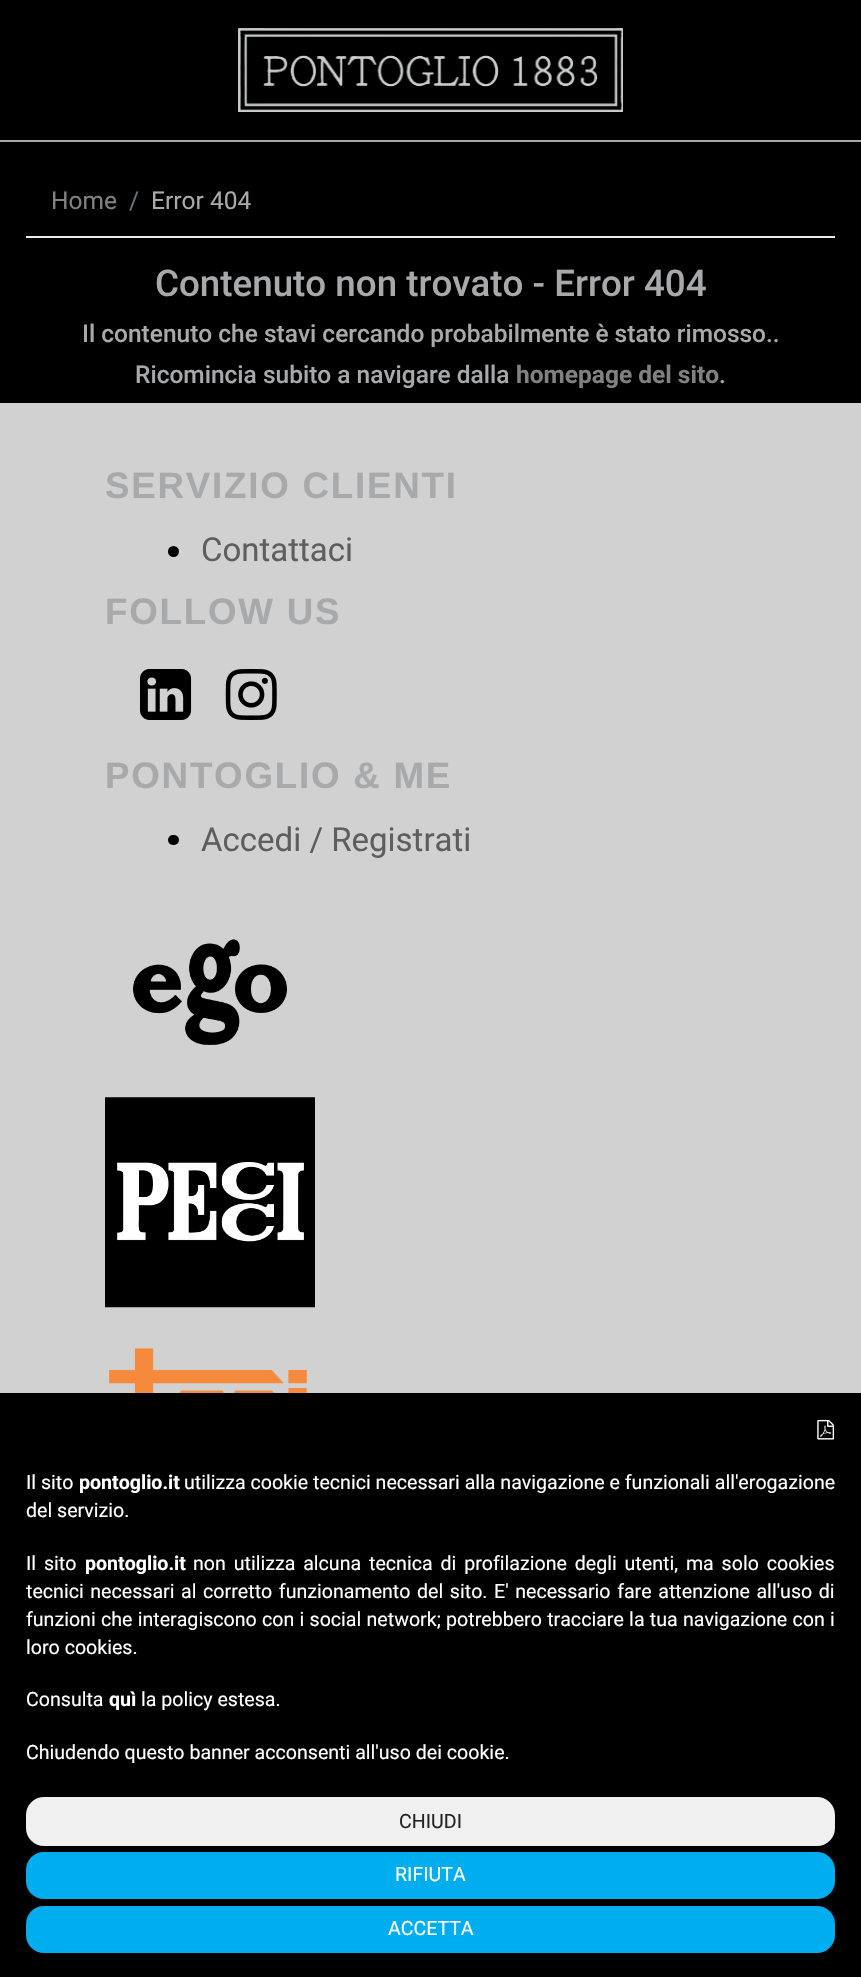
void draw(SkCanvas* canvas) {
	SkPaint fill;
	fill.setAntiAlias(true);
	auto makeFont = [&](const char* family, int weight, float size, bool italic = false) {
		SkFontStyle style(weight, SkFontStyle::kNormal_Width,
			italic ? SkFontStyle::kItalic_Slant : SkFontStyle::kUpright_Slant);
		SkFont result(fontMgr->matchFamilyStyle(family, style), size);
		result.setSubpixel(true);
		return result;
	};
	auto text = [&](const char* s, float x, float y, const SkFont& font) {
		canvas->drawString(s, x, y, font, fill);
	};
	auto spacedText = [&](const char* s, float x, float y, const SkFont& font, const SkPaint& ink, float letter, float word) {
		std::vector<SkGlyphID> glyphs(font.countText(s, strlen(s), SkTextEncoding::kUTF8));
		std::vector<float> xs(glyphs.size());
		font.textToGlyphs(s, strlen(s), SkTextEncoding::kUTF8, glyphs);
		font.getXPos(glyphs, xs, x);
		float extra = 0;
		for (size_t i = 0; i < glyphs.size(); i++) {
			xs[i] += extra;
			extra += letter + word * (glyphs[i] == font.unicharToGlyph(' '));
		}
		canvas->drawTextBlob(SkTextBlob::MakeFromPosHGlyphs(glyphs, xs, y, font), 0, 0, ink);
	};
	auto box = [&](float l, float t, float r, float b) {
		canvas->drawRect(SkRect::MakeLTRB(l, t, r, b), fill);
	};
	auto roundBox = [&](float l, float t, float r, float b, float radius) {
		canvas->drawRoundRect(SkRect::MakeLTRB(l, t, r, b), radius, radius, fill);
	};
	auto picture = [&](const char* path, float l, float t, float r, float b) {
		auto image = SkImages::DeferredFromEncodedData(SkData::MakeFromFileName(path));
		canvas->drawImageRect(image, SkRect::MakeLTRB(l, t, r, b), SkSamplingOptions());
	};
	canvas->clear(0xFF000000);
	fill.setColor(0xFFA8A9AB);
	box(0, 140, 861, 142);
	picture("image0.png", 238, 28, 623, 112);
	fill.setColor(0xFFECECEC);
	box(26, 236, 835, 238);
	fill.setColor(0xFFD1D1D1);
	box(0, 403, 861, 1393);
	fill.setColor(0xFF000000);
	canvas->drawCircle(173.5f, 551.5f, 5.5f, fill);
	picture("image1.png", 140, 669, 192, 720);
	picture("image2.png", 225, 669, 277, 720);
	roundBox(168, 835, 179, 845, 5);
	picture("image3.png", 133, 939, 287, 1045);
	picture("image4.png", 105, 1097, 315, 1308);
	picture("image5.png", 109, 1348, 308, 1393);
	picture("image6.png", 817, 1419, 835, 1440);
	fill.setColor(0xFFF0F0F0);
	roundBox(26, 1797, 835, 1846, 18);
	fill.setColor(0xFF00AEEF);
	roundBox(26, 1852, 835, 1899, 18);
	roundBox(26, 1906, 835, 1953, 18);
	auto font1 = makeFont("Roboto", 400, 24.5f);
	fill.setColor(0xFF818181);
	text("Home", 51, 209, font1);
	fill.setColor(0xFF6C757D);
	text("/", 129, 209, font1);
	fill.setColor(0xFFA8A9AB);
	text("Error 404", 151, 209, font1);
	auto font2 = makeFont("Roboto", 500, 36.75f);
	text("Contenuto non trovato - Error 404", 155, 296, font2);
	auto font3 = makeFont("Roboto", 500, 24.5f);
	text("Il contenuto che stavi cercando probabilmente è stato rimosso..", 82, 342, font3);
	text("Ricomincia subito a navigare dalla", 135, 383, font3);
	auto font4 = makeFont("Roboto", 700, 24.5f);
	fill.setColor(0xFF818181);
	text("homepage del sito", 516, 383, font4);
	fill.setColor(0xFFA8A9AB);
	text(".", 719, 383, font3);
	auto font5 = makeFont("Liberation Sans", 700, 36.75f);
	spacedText("SERVIZIO CLIENTI", 105, 498, font5, fill, 1.75f, 0);
	auto font6 = makeFont("Roboto", 400, 33);
	fill.setColor(0xFF5E5E5E);
	text("Contattaci", 201, 561, font6);
	fill.setColor(0xFFA8A9AB);
	spacedText("FOLLOW US", 105, 624, font5, fill, 1.75f, 0);
	spacedText("PONTOGLIO & ME", 105, 788, font5, fill, 1.75f, 0);
	fill.setColor(0xFF5E5E5E);
	text("Accedi / Registrati", 201, 851, font6);
	auto font7 = makeFont("Roboto", 400, 19.6f);
	fill.setColor(0xFFFFFFFF);
	text("Il sito", 26, 1489, font7);
	auto font8 = makeFont("Roboto", 700, 19.6f);
	text("pontoglio.it", 79, 1489, font8);
	text("utilizza cookie tecnici necessari alla navigazione e funzionali all'erogazione", 184, 1489, font7);
	text("del servizio.", 26, 1517, font7);
	spacedText("Il sito", 26, 1570, font7, fill, 0, 3);
	text("pontoglio.it", 85, 1570, font8);
	spacedText("non utilizza alcuna tecnica di profilazione degli utenti, ma solo cookies", 193, 1570, font7, fill, 0, 3);
	spacedText("tecnici necessari al corretto funzionamento del sito.", 26, 1598, font7, fill, 0, 1.75f);
	spacedText("E' necessario fare attenzione all'uso di", 494, 1598, font7, fill, 0, 1.75f);
	spacedText("funzioni che interagiscono con i social network; potrebbero tracciare la tua navigazione con i", 26, 1626, font7, fill, 0, 0.4f);
	text("loro cookies.", 26, 1654, font7);
	text("Consulta", 26, 1706, font7);
	text("quì", 109, 1706, font8);
	text("la policy estesa.", 141, 1706, font7);
	text("Chiudendo questo banner acconsenti all'uso dei cookie.", 26, 1759, font7);
	fill.setColor(0xFF232323);
	text("CHIUDI", 399, 1828, font7);
	fill.setColor(0xFFFFFFFF);
	text("RIFIUTA", 395, 1881, font7);
	text("ACCETTA", 388, 1935, font7);
}
